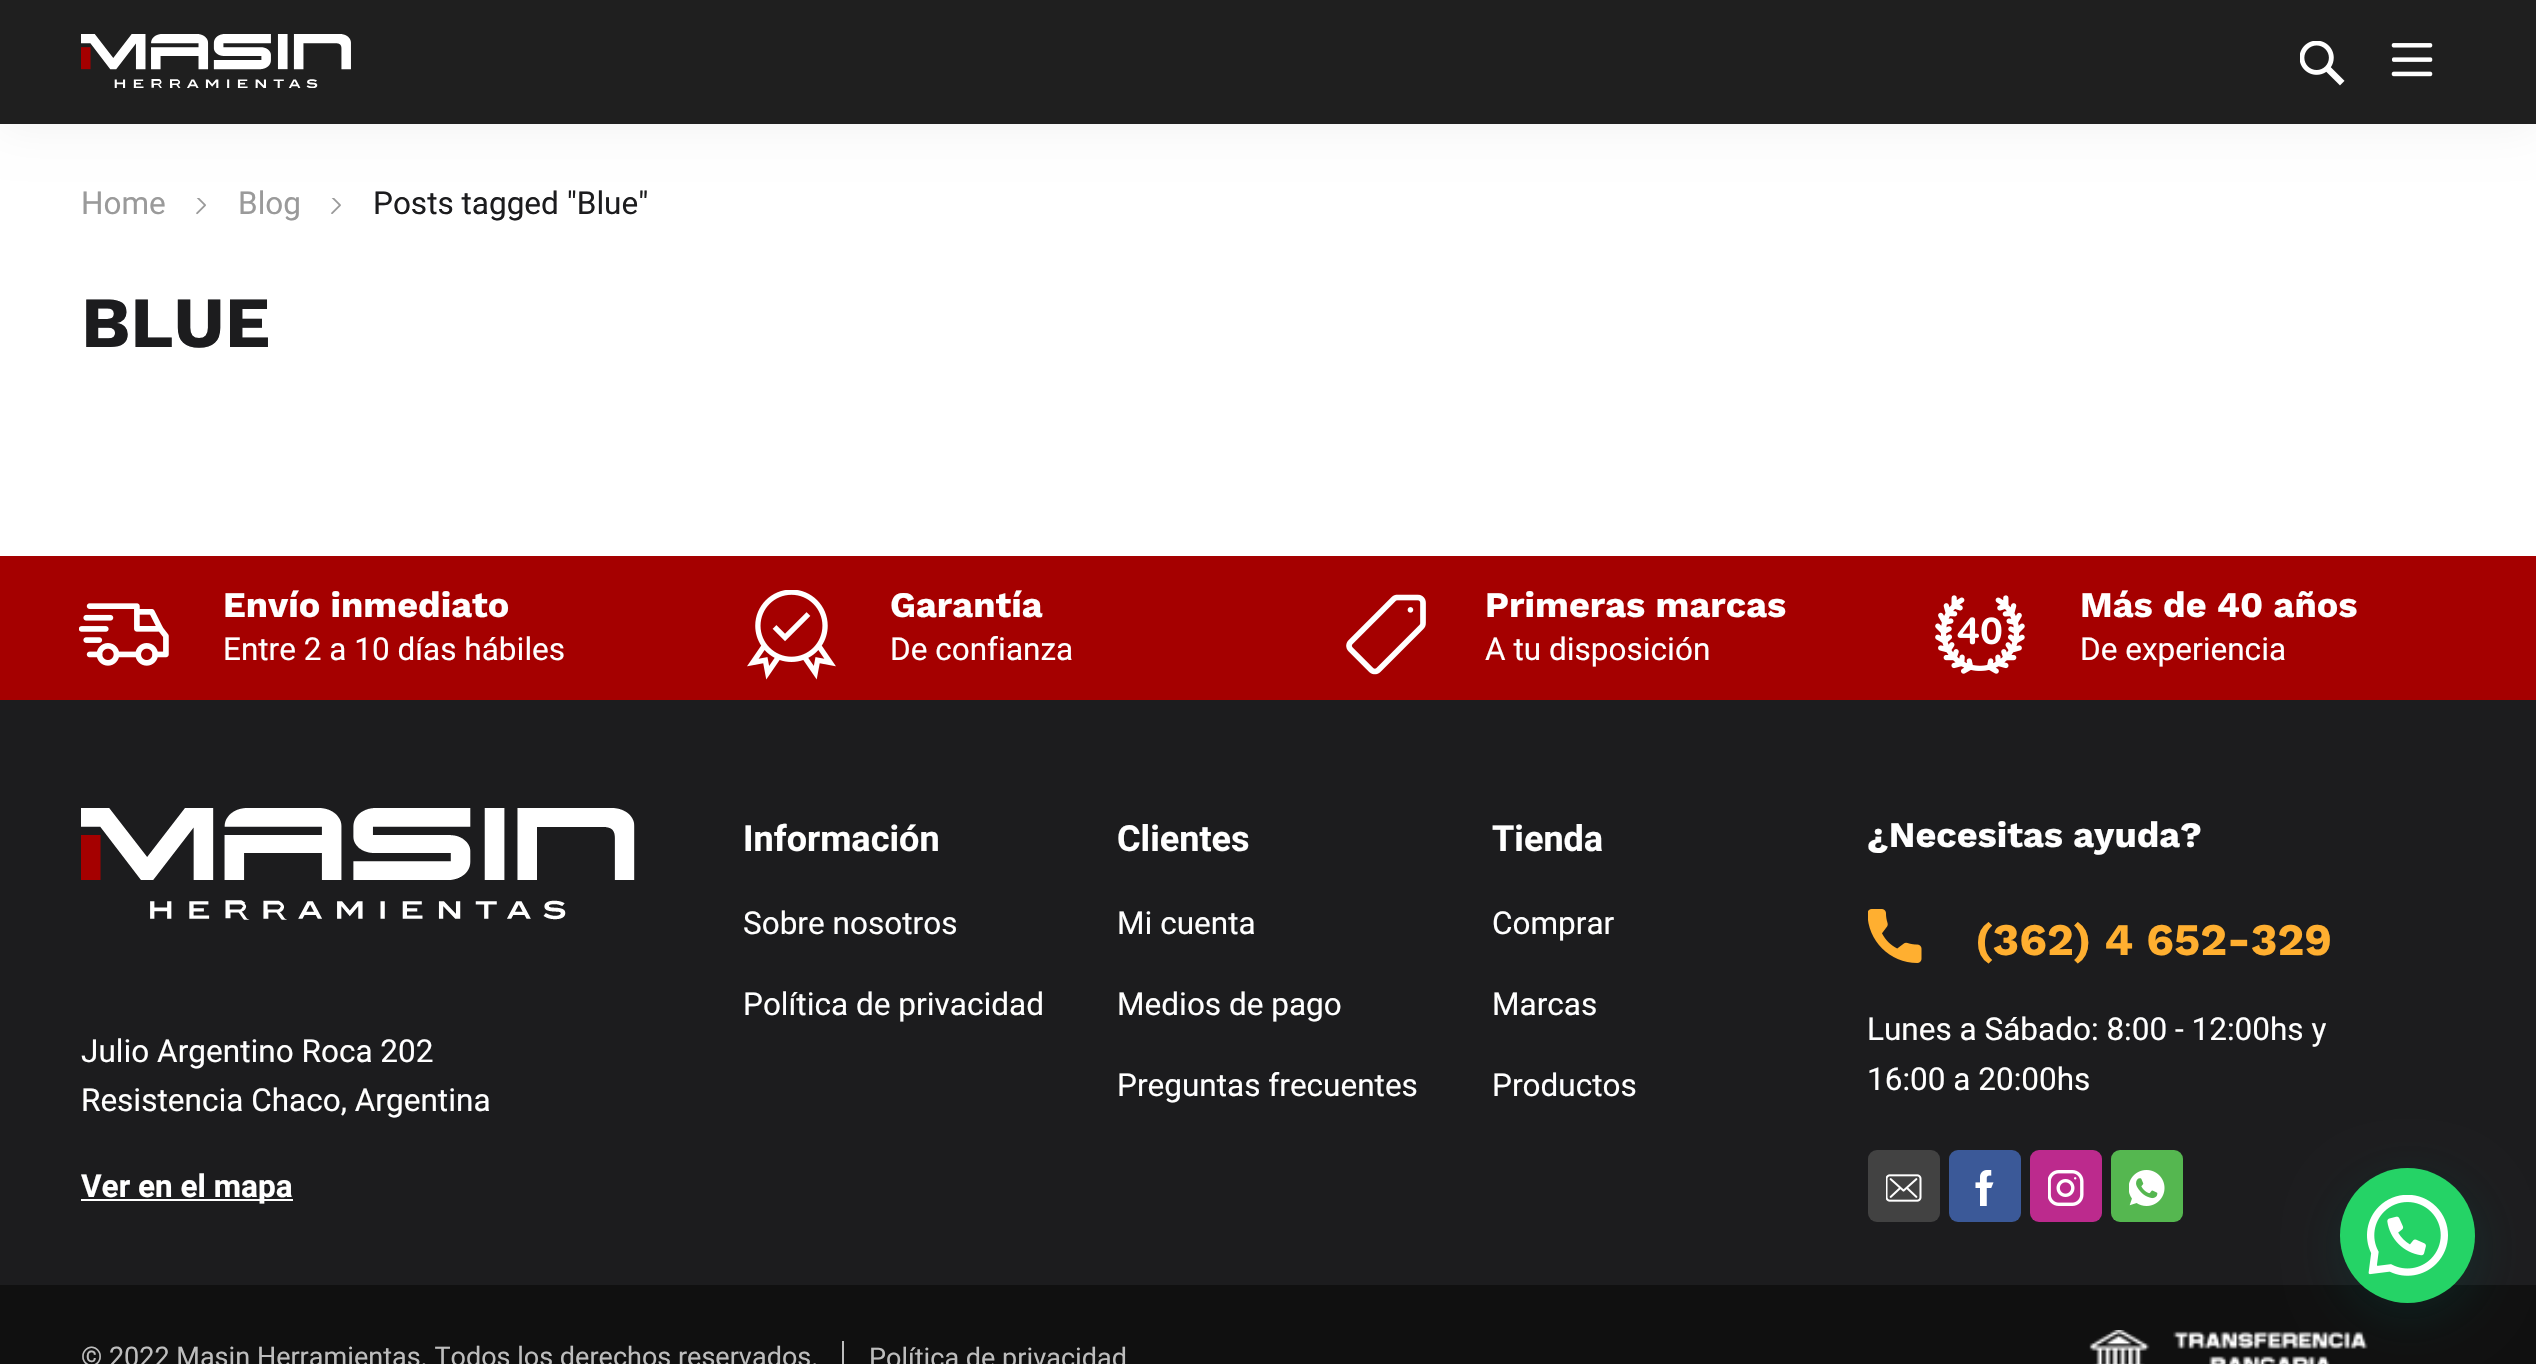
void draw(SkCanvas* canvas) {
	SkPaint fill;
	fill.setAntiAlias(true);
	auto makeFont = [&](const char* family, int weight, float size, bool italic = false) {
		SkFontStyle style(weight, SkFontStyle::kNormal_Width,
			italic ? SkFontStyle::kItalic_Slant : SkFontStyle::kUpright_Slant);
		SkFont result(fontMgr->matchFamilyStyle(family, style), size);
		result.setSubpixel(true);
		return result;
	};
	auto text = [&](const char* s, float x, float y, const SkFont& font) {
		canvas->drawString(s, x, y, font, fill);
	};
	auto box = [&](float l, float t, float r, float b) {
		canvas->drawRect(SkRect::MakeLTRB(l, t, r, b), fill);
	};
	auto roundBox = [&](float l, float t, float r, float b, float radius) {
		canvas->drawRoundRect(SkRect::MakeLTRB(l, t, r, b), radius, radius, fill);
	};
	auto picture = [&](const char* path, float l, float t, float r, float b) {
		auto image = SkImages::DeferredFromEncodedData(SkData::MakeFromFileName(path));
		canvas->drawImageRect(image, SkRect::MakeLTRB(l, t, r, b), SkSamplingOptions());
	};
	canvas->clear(0xFFFFFFFF);
	fill.setColor(0x0D000000);
	fill.setMaskFilter(SkMaskFilter::MakeBlur(kNormal_SkBlurStyle, 22.5f));
	canvas->drawRect(SkRect::MakeLTRB(0, 2, 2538, 128), fill);
	fill.setMaskFilter(nullptr);
	fill.setColor(0xFF1F1F1F);
	box(0, 0, 2536, 124);
	picture("image0.png", 81, 34, 351, 88);
	picture("image1.png", 2300, 41, 2345, 86);
	picture("image2.png", 2391, 43, 2433, 77);
	picture("image3.png", 196, 198, 206, 215);
	picture("image4.png", 331, 198, 341, 214);
	fill.setColor(0xFFA50000);
	box(0, 556, 2536, 700);
	picture("image5.png", 79, 603, 169, 666);
	picture("image6.png", 747, 590, 836, 680);
	picture("image7.png", 1346, 594, 1426, 675);
	picture("image8.png", 1935, 595, 2025, 674);
	fill.setColor(0xFF1C1C1E);
	box(0, 700, 2536, 1285);
	picture("image9.png", 1868, 909, 1922, 963);
	fill.setColor(0xFF424242);
	roundBox(1868, 1150, 1940, 1222, 9);
	picture("image10.png", 1886, 1174, 1922, 1202);
	fill.setColor(0xFF3B5998);
	roundBox(1949, 1150, 2021, 1222, 9);
	picture("image11.png", 1975, 1170, 1994, 1206);
	fill.setColor(0xFFBC2A8D);
	roundBox(2030, 1150, 2102, 1222, 9);
	picture("image12.png", 2048, 1170, 2084, 1206);
	fill.setColor(0xFF55B750);
	roundBox(2111, 1150, 2183, 1222, 9);
	picture("image13.png", 2129, 1170, 2165, 1206);
	picture("image14.png", 81, 808, 635, 920);
	fill.setColor(0xFFFFFFFF);
	box(81, 1199, 293, 1201);
	fill.setColor(0xFF101010);
	box(0, 1285, 2536, 1364);
	fill.setColor(0xFFBDBDBD);
	box(842, 1341, 844, 1364);
	picture("image15.png", 2089, 1330, 2368, 1364);
	fill.setColor(0x3D075E54);
	fill.setMaskFilter(SkMaskFilter::MakeBlur(kNormal_SkBlurStyle, 27));
	canvas->drawRoundRect(SkRect::MakeLTRB(2342, 1181, 2477, 1316), 67.5f, 67.5f, fill);
	fill.setMaskFilter(nullptr);
	fill.setColor(0xFF25D366);
	canvas->drawCircle(2407.5f, 1235.5f, 67.5f, fill);
	picture("image16.png", 2367, 1195, 2448, 1276);
	auto font1 = makeFont("Heebo", 400, 31.5f);
	fill.setColor(0xFF9A9A9A);
	text("Home", 81, 214, font1);
	text("Blog", 238, 214, font1);
	fill.setColor(0xFF1C1C1E);
	text("Posts tagged \"Blue\"", 373, 214, font1);
	auto font2 = makeFont("Work Sans", 700, 72);
	text("BLUE", 81, 347, font2);
	auto font3 = makeFont("Work Sans", 700, 36);
	fill.setColor(0xFFFFFFFF);
	text("Envío inmediato", 223, 617, font3);
	text("Entre 2 a 10 días hábiles", 223, 660, font1);
	text("Garantía", 890, 617, font3);
	text("De confianza", 890, 660, font1);
	text("Primeras marcas", 1485, 617, font3);
	text("A tu disposición", 1485, 660, font1);
	text("Más de 40 años", 2080, 617, font3);
	text("De experiencia", 2080, 660, font1);
	auto font4 = makeFont("Heebo", 700, 36);
	text("Información", 743, 851, font4);
	text("Sobre nosotros", 743, 934, font1);
	text("Política de privacidad", 743, 1015, font1);
	text("Clientes", 1117, 851, font4);
	text("Mi cuenta", 1117, 934, font1);
	text("Medios de pago", 1117, 1015, font1);
	text("Preguntas frecuentes", 1117, 1096, font1);
	text("Tienda", 1492, 851, font4);
	text("Comprar", 1492, 934, font1);
	text("Marcas", 1492, 1015, font1);
	text("Productos", 1492, 1096, font1);
	text("¿Necesitas ayuda?", 1867, 847, font3);
	auto font5 = makeFont("Work Sans", 700, 45);
	fill.setColor(0xFFFFAF30);
	text("(362) 4 652-329", 1975, 955, font5);
	fill.setColor(0xFFFFFFFF);
	text("Lunes a Sábado: 8:00 - 12:00hs y", 1867, 1040, font1);
	text("16:00 a 20:00hs", 1867, 1090, font1);
	text("Julio Argentino Roca 202", 81, 1062, font1);
	text("Resistencia Chaco, Argentina", 81, 1111, font1);
	auto font6 = makeFont("Heebo", 700, 31.5f);
	text("Ver en el mapa", 81, 1197, font6);
	auto font7 = makeFont("Heebo", 400, 27);
	fill.setColor(0xFFBDBDBD);
	text("© 2022 Masin Herramientas. Todos los derechos reservados.", 81, 1366, font7);
	text("Política de privacidad", 869, 1367, font7);
}
